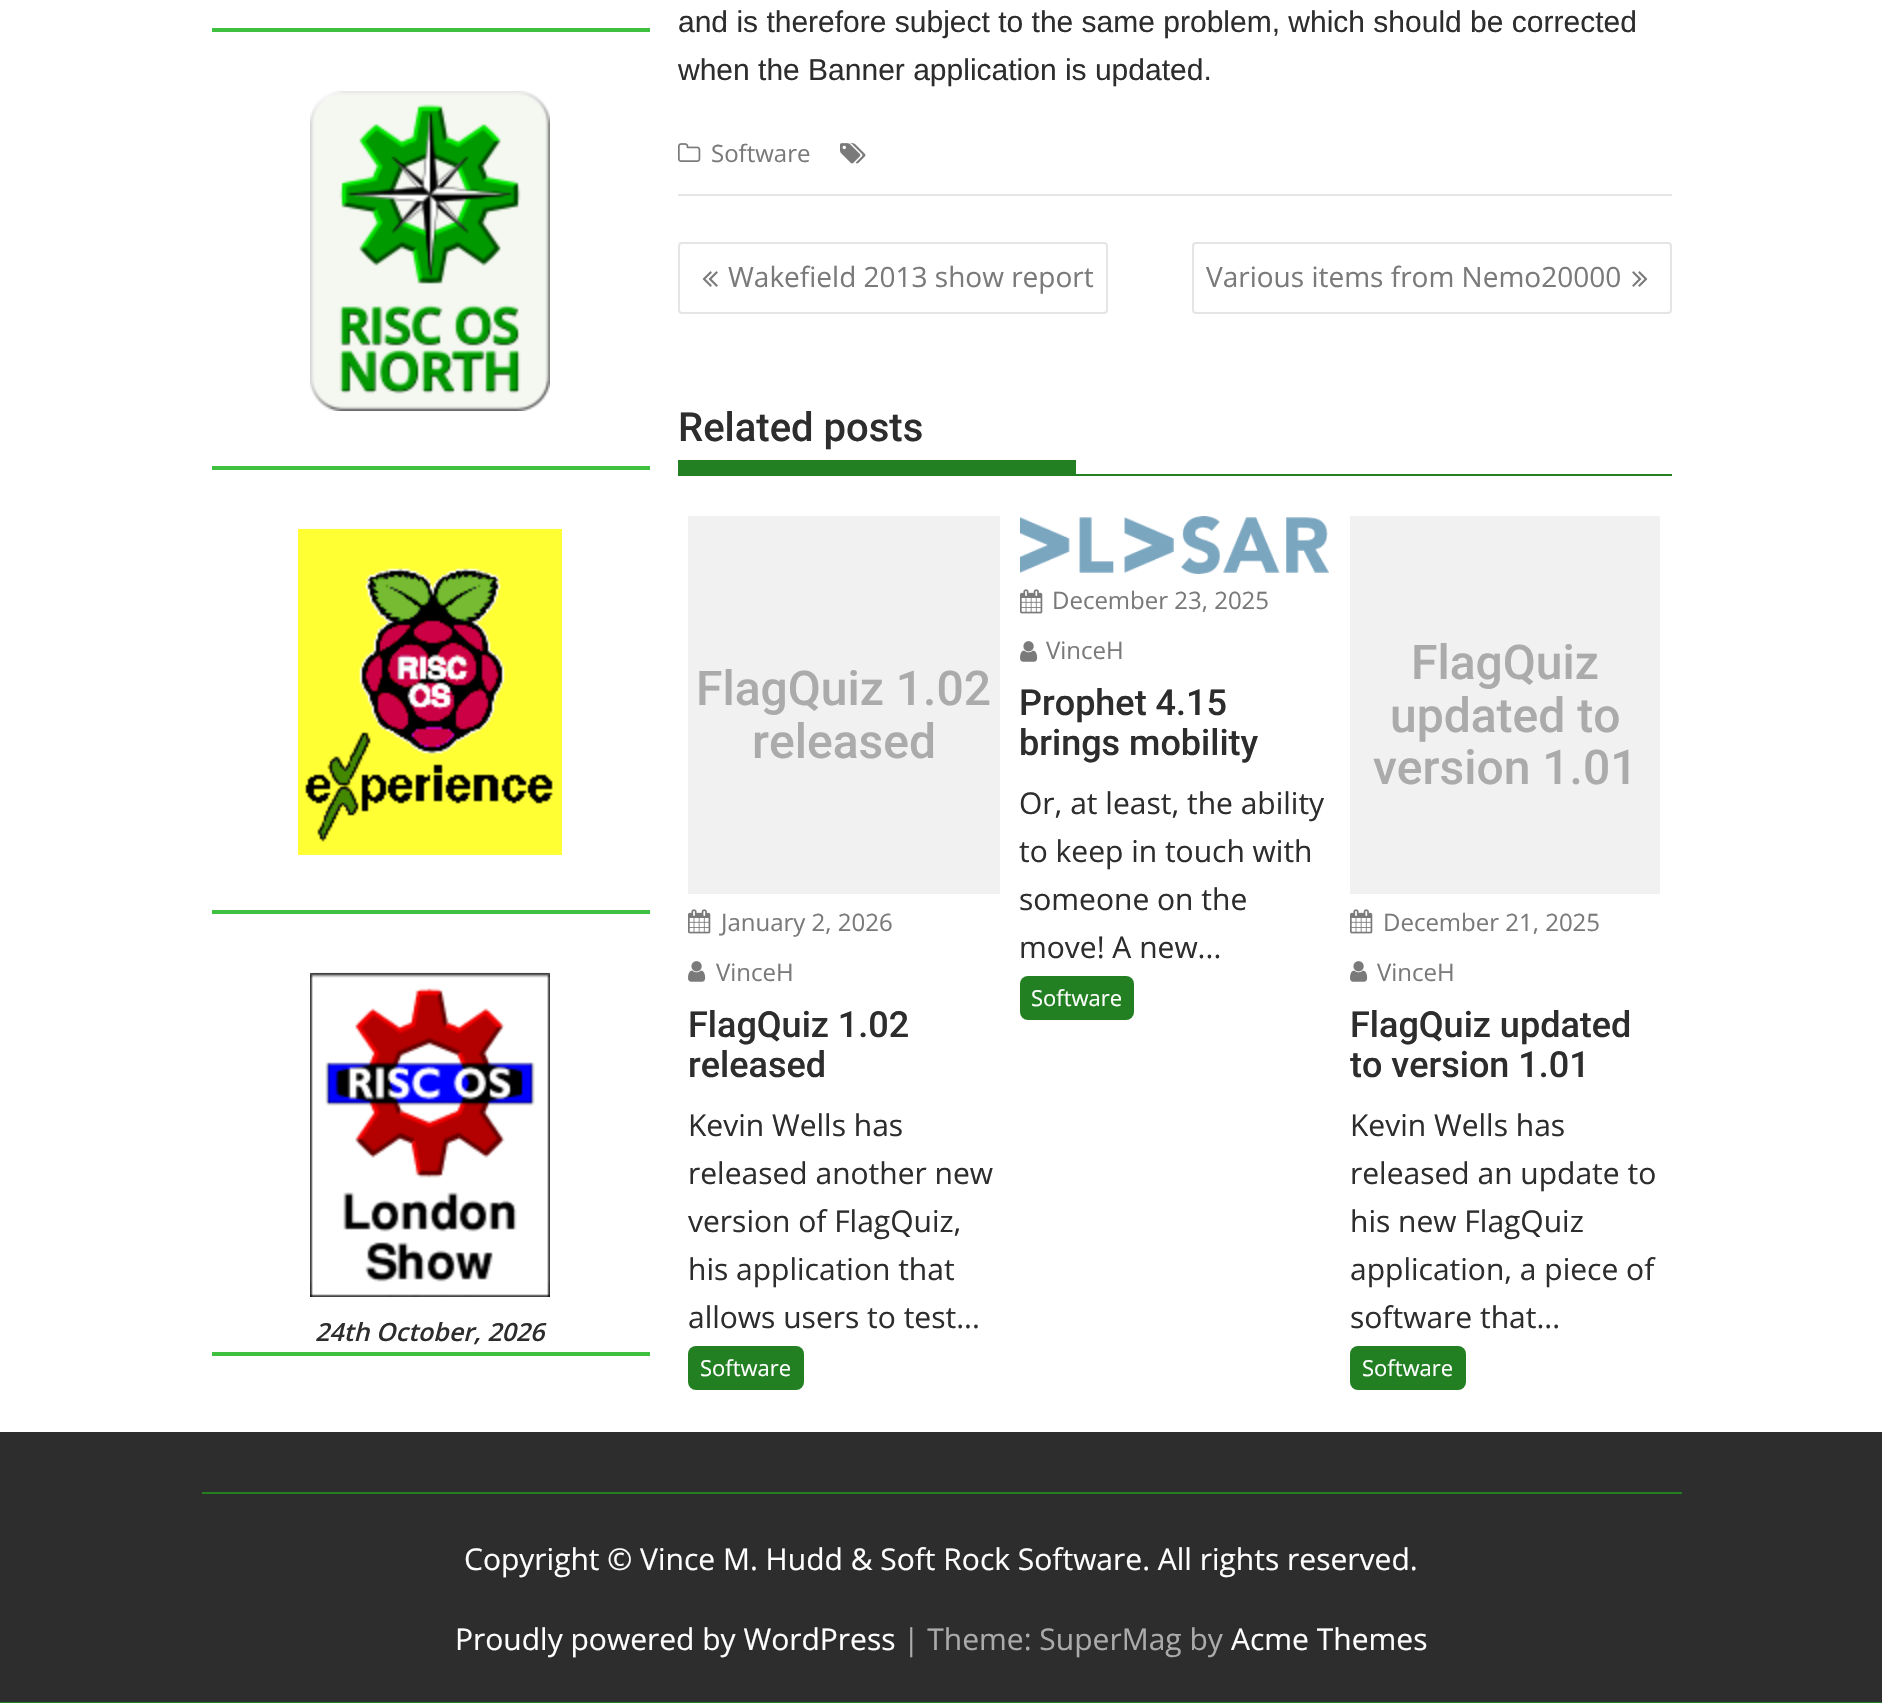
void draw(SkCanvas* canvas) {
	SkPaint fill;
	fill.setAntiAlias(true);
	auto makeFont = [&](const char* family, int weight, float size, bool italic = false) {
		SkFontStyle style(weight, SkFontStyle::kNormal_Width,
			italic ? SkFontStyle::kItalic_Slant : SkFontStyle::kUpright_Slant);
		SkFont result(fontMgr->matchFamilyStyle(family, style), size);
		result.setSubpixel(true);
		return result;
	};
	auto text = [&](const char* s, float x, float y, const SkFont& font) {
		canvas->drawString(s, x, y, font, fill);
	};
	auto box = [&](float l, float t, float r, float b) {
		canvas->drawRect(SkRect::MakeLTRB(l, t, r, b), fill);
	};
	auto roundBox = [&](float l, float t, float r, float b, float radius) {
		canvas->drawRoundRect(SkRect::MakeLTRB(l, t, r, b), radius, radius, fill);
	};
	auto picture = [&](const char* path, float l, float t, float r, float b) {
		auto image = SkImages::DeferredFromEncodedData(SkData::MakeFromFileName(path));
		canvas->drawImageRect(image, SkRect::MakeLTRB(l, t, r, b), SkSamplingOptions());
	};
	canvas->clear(0xFFFFFFFF);
	fill.setColor(0xFF40C040);
	box(212, 28, 650, 32);
	box(212, 466, 650, 470);
	picture("image0.png", 310, 91, 550, 411);
	box(212, 910, 650, 914);
	picture("image1.png", 298, 528, 562, 855);
	box(212, 1352, 650, 1356);
	picture("image2.png", 310, 972, 550, 1297);
	fill.setColor(0xFFE5E5E5);
	box(678, 194, 1672, 196);
	picture("image3.png", 678, 143, 701, 162);
	picture("image4.png", 840, 143, 866, 164);
	fill.setStyle(SkPaint::kStroke_Style);
	fill.setStrokeWidth(2);
	canvas->drawRoundRect(SkRect::MakeLTRB(679, 243, 1107, 313), 3, 3, fill);
	picture("image5.png", 702, 271, 718, 287);
	canvas->drawRoundRect(SkRect::MakeLTRB(1193, 243, 1671, 313), 3, 3, fill);
	picture("image6.png", 1632, 271, 1648, 287);
	fill.setStyle(SkPaint::kFill_Style);
	fill.setColor(0xFF227F22);
	box(678, 474, 1672, 476);
	box(678, 460, 1076, 474);
	fill.setColor(0xFFF1F1F1);
	box(688, 516, 1000, 894);
	picture("image7.png", 688, 909, 711, 934);
	picture("image8.png", 688, 961, 706, 982);
	fill.setColor(0xFF227F22);
	roundBox(688, 1346, 804, 1390, 8);
	picture("image9.png", 1020, 516, 1329, 574);
	picture("image7.png", 1020, 589, 1043, 614);
	picture("image8.png", 1020, 641, 1038, 662);
	roundBox(1020, 976, 1134, 1020, 8);
	fill.setColor(0xFFF1F1F1);
	box(1350, 516, 1660, 894);
	picture("image7.png", 1350, 909, 1373, 934);
	picture("image8.png", 1350, 961, 1368, 982);
	fill.setColor(0xFF227F22);
	roundBox(1350, 1346, 1466, 1390, 8);
	fill.setColor(0xFF2D2D2D);
	box(0, 1432, 1882, 1702);
	fill.setColor(0xFF227F22);
	box(0, 1702, 1882, 1703);
	box(202, 1492, 1682, 1494);
	auto font1 = makeFont("Open Sans", 600, 25, true);
	fill.setColor(0xFF2D2D2D);
	text("24th October, 2026", 315, 1341, font1);
	auto font2 = makeFont("Liberation Sans", 400, 30);
	text("and is therefore subject to the same problem, which should be corrected", 678, 32, font2);
	text("when the Banner application is updated.", 678, 80, font2);
	auto font3 = makeFont("Open Sans", 400, 24);
	fill.setColor(0xFF7A7A7A);
	text("Software", 711, 162, font3);
	auto font4 = makeFont("Open Sans", 400, 28);
	text("Wakefield 2013 show report", 728, 287, font4);
	text("Various items from Nemo20000", 1206, 287, font4);
	auto font5 = makeFont("Roboto", 500, 40);
	fill.setColor(0xFF2D2D2D);
	text("Related posts", 678, 441, font5);
	auto font6 = makeFont("Roboto", 500, 48);
	fill.setColor(0xFFABABAB);
	text("FlagQuiz 1.02", 696, 705, font6);
	text("released", 752, 758, font6);
	fill.setColor(0xFF7A7A7A);
	text("January 2, 2026", 721, 931, font3);
	text("VinceH", 716, 981, font3);
	auto font7 = makeFont("Roboto", 500, 36);
	fill.setColor(0xFF2D2D2D);
	text("FlagQuiz 1.02", 688, 1037, font7);
	text("released", 688, 1077, font7);
	auto font8 = makeFont("Open Sans", 400, 30);
	text("Kevin Wells has", 688, 1136, font8);
	text("released another new", 688, 1184, font8);
	text("version of FlagQuiz,", 688, 1232, font8);
	text("his application that", 688, 1280, font8);
	text("allows users to test...", 688, 1328, font8);
	auto font9 = makeFont("Open Sans", 400, 22);
	fill.setColor(0xFFFFFFFF);
	text("Software", 700, 1376, font9);
	fill.setColor(0xFF7A7A7A);
	text("December 23, 2025", 1052, 609, font3);
	text("VinceH", 1046, 659, font3);
	fill.setColor(0xFF2D2D2D);
	text("Prophet 4.15", 1019, 715, font7);
	text("brings mobility", 1019, 755, font7);
	text("Or, at least, the ability", 1019, 814, font8);
	text("to keep in touch with", 1019, 862, font8);
	text("someone on the", 1019, 910, font8);
	text("move! A new...", 1019, 958, font8);
	fill.setColor(0xFFFFFFFF);
	text("Software", 1031, 1006, font9);
	fill.setColor(0xFFABABAB);
	text("FlagQuiz", 1411, 679, font6);
	text("updated to", 1390, 732, font6);
	text("version 1.01", 1373, 784, font6);
	fill.setColor(0xFF7A7A7A);
	text("December 21, 2025", 1383, 931, font3);
	text("VinceH", 1377, 981, font3);
	fill.setColor(0xFF2D2D2D);
	text("FlagQuiz updated", 1350, 1037, font7);
	text("to version 1.01", 1350, 1077, font7);
	text("Kevin Wells has", 1350, 1136, font8);
	text("released an update to", 1350, 1184, font8);
	text("his new FlagQuiz", 1350, 1232, font8);
	text("application, a piece of", 1350, 1280, font8);
	text("software that...", 1350, 1328, font8);
	fill.setColor(0xFFFFFFFF);
	text("Software", 1362, 1376, font9);
	text("Copyright © Vince M. Hudd & Soft Rock Software. All rights reserved.", 464, 1570, font8);
	text("Proudly powered by WordPress", 455, 1650, font8);
	fill.setColor(0xFFABABAB);
	text("| Theme: SuperMag by", 903, 1650, font8);
	fill.setColor(0xFFFFFFFF);
	text("Acme Themes", 1231, 1650, font8);
}
